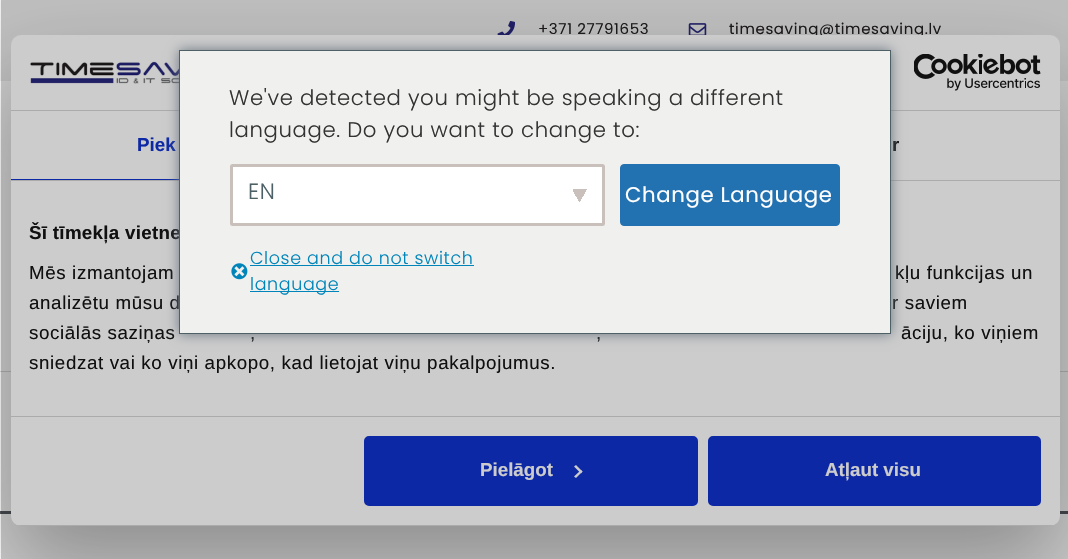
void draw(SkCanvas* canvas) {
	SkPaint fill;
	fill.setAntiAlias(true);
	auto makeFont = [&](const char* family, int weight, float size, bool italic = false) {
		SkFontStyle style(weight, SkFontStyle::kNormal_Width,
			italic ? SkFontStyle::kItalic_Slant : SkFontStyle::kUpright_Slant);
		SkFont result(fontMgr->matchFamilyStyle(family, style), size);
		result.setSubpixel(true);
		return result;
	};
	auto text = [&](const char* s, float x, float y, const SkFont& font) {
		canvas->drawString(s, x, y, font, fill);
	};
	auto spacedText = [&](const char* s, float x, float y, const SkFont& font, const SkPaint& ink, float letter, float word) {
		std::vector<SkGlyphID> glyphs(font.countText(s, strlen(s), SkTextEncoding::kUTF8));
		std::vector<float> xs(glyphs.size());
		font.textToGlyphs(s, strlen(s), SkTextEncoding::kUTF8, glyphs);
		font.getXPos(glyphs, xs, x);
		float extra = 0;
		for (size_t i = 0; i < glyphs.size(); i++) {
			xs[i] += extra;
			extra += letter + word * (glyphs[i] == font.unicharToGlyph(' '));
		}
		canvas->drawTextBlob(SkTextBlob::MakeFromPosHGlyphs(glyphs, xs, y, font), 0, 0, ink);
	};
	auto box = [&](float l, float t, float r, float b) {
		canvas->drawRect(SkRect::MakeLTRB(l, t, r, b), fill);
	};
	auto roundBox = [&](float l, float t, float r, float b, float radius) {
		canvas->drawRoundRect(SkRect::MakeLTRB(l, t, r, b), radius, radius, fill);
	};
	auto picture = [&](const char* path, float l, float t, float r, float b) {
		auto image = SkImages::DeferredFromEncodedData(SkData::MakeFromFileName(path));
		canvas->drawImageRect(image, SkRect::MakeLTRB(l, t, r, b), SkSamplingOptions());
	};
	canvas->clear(0xFFFFFFFF);
	fill.setColor(0xFFEFEFEF);
	box(0, 0, 1068, 81);
	picture("image0.png", 497, 21, 515, 35);
	picture("image1.png", 688, 23, 707, 35);
	fill.setColor(0xFFD8D8D8);
	box(0, 371, 1068, 372);
	fill.setColor(0xFF54595F);
	box(0, 511, 1068, 514);
	fill.setColor(0x4D000000);
	fill.setMaskFilter(SkMaskFilter::MakeBlur(kNormal_SkBlurStyle, 42.5f));
	canvas->drawRoundRect(SkRect::MakeLTRB(11, 75, 1060, 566), 10, 10, fill);
	fill.setMaskFilter(nullptr);
	auto font1 = makeFont("Poppins", 400, 15);
	fill.setColor(0xFF231F20);
	spacedText("+371 27791653", 538, 34, font1, fill, 0.62f, 0);
	spacedText("timesaving@timesaving.lv", 729, 34, font1, fill, 0.62f, 0);
	fill.setColor(0xFFFFFFFF);
	roundBox(11, 35, 1060, 526, 10);
	fill.setColor(0xFFD6D6D6);
	box(11, 110, 1060, 111);
	picture("image3.png", 30, 61, 179, 84);
	picture("image4.png", 914, 54, 1041, 91);
	box(11, 180, 1060, 181);
	fill.setColor(0xFF1032CF);
	box(11, 179, 179, 180);
	auto font2 = makeFont("Liberation Sans", 700, 18.75f);
	text("Piek", 137, 151, font2);
	fill.setColor(0xFF141414);
	text("r", 892, 151, font2);
	fill.setColor(0xFFD6D6D6);
	box(11, 416, 1060, 417);
	fill.setColor(0xFF141414);
	spacedText("Šī tīmekļa vietne", 29, 239, font2, fill, 0.3f, 0);
	auto font3 = makeFont("Liberation Sans", 400, 18.75f);
	spacedText("Mēs izmantojam", 29, 279, font3, fill, 0.62f, 0);
	spacedText("kļu funkcijas un", 895, 279, font3, fill, 0.62f, 0);
	spacedText("analizētu mūsu d", 29, 309, font3, fill, 0.62f, 0);
	spacedText("r saviem", 892, 309, font3, fill, 0.62f, 0);
	spacedText("sociālās saziņas", 29, 339, font3, fill, 0.62f, 0);
	spacedText(",", 250, 339, font3, fill, 0.62f, 0);
	spacedText(",", 596, 339, font3, fill, 0.62f, 0);
	spacedText("āciju, ko viņiem", 901, 339, font3, fill, 0.62f, 0);
	spacedText("sniedzat vai ko viņi apkopo, kad lietojat viņu pakalpojumus.", 29, 369, font3, fill, 0.62f, 0);
	canvas->save();
	canvas->clipPath(SkPathBuilder().moveTo(21, 35).lineTo(1050, 35).cubicTo(1055.5f, 35, 1060, 39.5f, 1060, 45).lineTo(1060, 516).cubicTo(1060, 521.5f, 1055.5f, 526, 1050, 526).lineTo(21, 526).cubicTo(15.5f, 526, 11, 521.5f, 11, 516).lineTo(11, 45).cubicTo(11, 39.5f, 15.5f, 35, 21, 35).close().detach(), true);
	fill.setColor(0xFFD6D6D6);
	box(11, 525, 1060, 526);
	canvas->restore();
	fill.setColor(0xFF1032CF);
	canvas->drawRoundRect(SkRect::MakeLTRB(365.5f, 437.5f, 696.5f, 504.5f), 3.5f, 3.5f, fill);
	fill.setStyle(SkPaint::kStroke_Style);
	fill.setStrokeWidth(3);
	canvas->drawRoundRect(SkRect::MakeLTRB(365.5f, 437.5f, 696.5f, 504.5f), 3.5f, 3.5f, fill);
	fill.setStyle(SkPaint::kFill_Style);
	fill.setColor(0xFFFFFFFF);
	text("Pielāgot", 480, 476, font2);
	canvas->drawPath(SkPathBuilder().moveTo(576, 465).lineTo(582.5f, 471.5f).lineTo(581, 473.5f).lineTo(574, 466.5f).close().detach(), fill);
	canvas->drawPath(SkPathBuilder().moveTo(581, 470).lineTo(582.5f, 471.5f).lineTo(576, 478).lineTo(574, 476.5f).close().detach(), fill);
	fill.setColor(0xFF1032CF);
	canvas->drawRoundRect(SkRect::MakeLTRB(709.5f, 437.5f, 1039.5f, 504.5f), 3.5f, 3.5f, fill);
	fill.setStyle(SkPaint::kStroke_Style);
	canvas->drawRoundRect(SkRect::MakeLTRB(709.5f, 437.5f, 1039.5f, 504.5f), 3.5f, 3.5f, fill);
	fill.setStyle(SkPaint::kFill_Style);
	fill.setColor(0xFFFFFFFF);
	text("Atļaut visu", 825, 476, font2);
	fill.setColor(0x33000000);
	box(1, 0, 1068, 559);
	fill.setColor(0xFF6C7781);
	fill.setMaskFilter(SkMaskFilter::MakeBlur(kNormal_SkBlurStyle, 6));
	canvas->drawRect(SkRect::MakeLTRB(179, 50, 891, 334), fill);
	fill.setMaskFilter(nullptr);
	fill.setColor(0xFFF0F0EE);
	canvas->drawRect(SkRect::MakeLTRB(179.5f, 50.5f, 890.5f, 333.5f), fill);
	fill.setStyle(SkPaint::kStroke_Style);
	fill.setStrokeWidth(1);
	fill.setColor(0xFF4C6066);
	canvas->drawRect(SkRect::MakeLTRB(179.5f, 50.5f, 890.5f, 333.5f), fill);
	picture("image2.png", 231, 263, 248, 280);
	fill.setStyle(SkPaint::kFill_Style);
	fill.setColor(0xFFFFFFFF);
	roundBox(230, 164, 605, 226, 2.5f);
	{
		const SkColor colors[] = {0xFFFFFFFF, 0xFFC9C0BB};
		const float stops[] = {0.5f, 0.5f};
		const SkPoint ends[] = {{570, 200}, {582, 193}};
		fill.setShader(SkGradientShader::MakeLinear(ends, colors, stops, 2, SkTileMode::kClamp));
		fill.setAlpha(255);
	}
	box(573, 189, 580, 204);
	{
		const SkColor colors[] = {0xFFC9C0BB, 0xFFFFFFFF};
		const float stops[] = {0.5f, 0.5f};
		const SkPoint ends[] = {{577, 193}, {589, 200}};
		fill.setShader(SkGradientShader::MakeLinear(ends, colors, stops, 2, SkTileMode::kClamp));
		fill.setAlpha(255);
	}
	box(580, 189, 587, 204);
	fill.setStyle(SkPaint::kStroke_Style);
	fill.setStrokeWidth(3);
	fill.setShader(nullptr);
	fill.setColor(0xFFC9C0BB);
	canvas->drawRoundRect(SkRect::MakeLTRB(231.5f, 165.5f, 603.5f, 224.5f), 1, 1, fill);
	auto font4 = makeFont("Poppins", 300, 22);
	fill.setStyle(SkPaint::kFill_Style);
	fill.setColor(0xFF4C6066);
	spacedText("EN", 248, 199, font4, fill, 0.62f, 0);
	fill.setColor(0xFF0085BA);
	box(250, 291, 339, 292);
	auto font5 = makeFont("Poppins", 300, 17.5f);
	spacedText("language", 250, 290, font5, fill, 0.62f, 0);
	spacedText("Close and do not switch", 250, 264, font5, fill, 0.62f, 0);
	box(250, 265, 474, 266);
	fill.setColor(0xFF2271B1);
	canvas->drawRoundRect(SkRect::MakeLTRB(620.5f, 164.5f, 839.5f, 225.5f), 3.5f, 3.5f, fill);
	fill.setStyle(SkPaint::kStroke_Style);
	fill.setStrokeWidth(1);
	canvas->drawRoundRect(SkRect::MakeLTRB(620.5f, 164.5f, 839.5f, 225.5f), 3.5f, 3.5f, fill);
	auto font6 = makeFont("Poppins", 400, 21.25f);
	fill.setStyle(SkPaint::kFill_Style);
	fill.setColor(0xFFFFFFFF);
	spacedText("Change Language", 625, 202, font6, fill, 0.62f, 0);
	auto font7 = makeFont("Poppins", 300, 21.25f);
	fill.setColor(0xFF333333);
	spacedText("language. Do you want to change to:", 229, 137, font7, fill, 0.62f, 0);
	spacedText("We've detected you might be speaking a different", 229, 105, font7, fill, 0.62f, 0);
}
